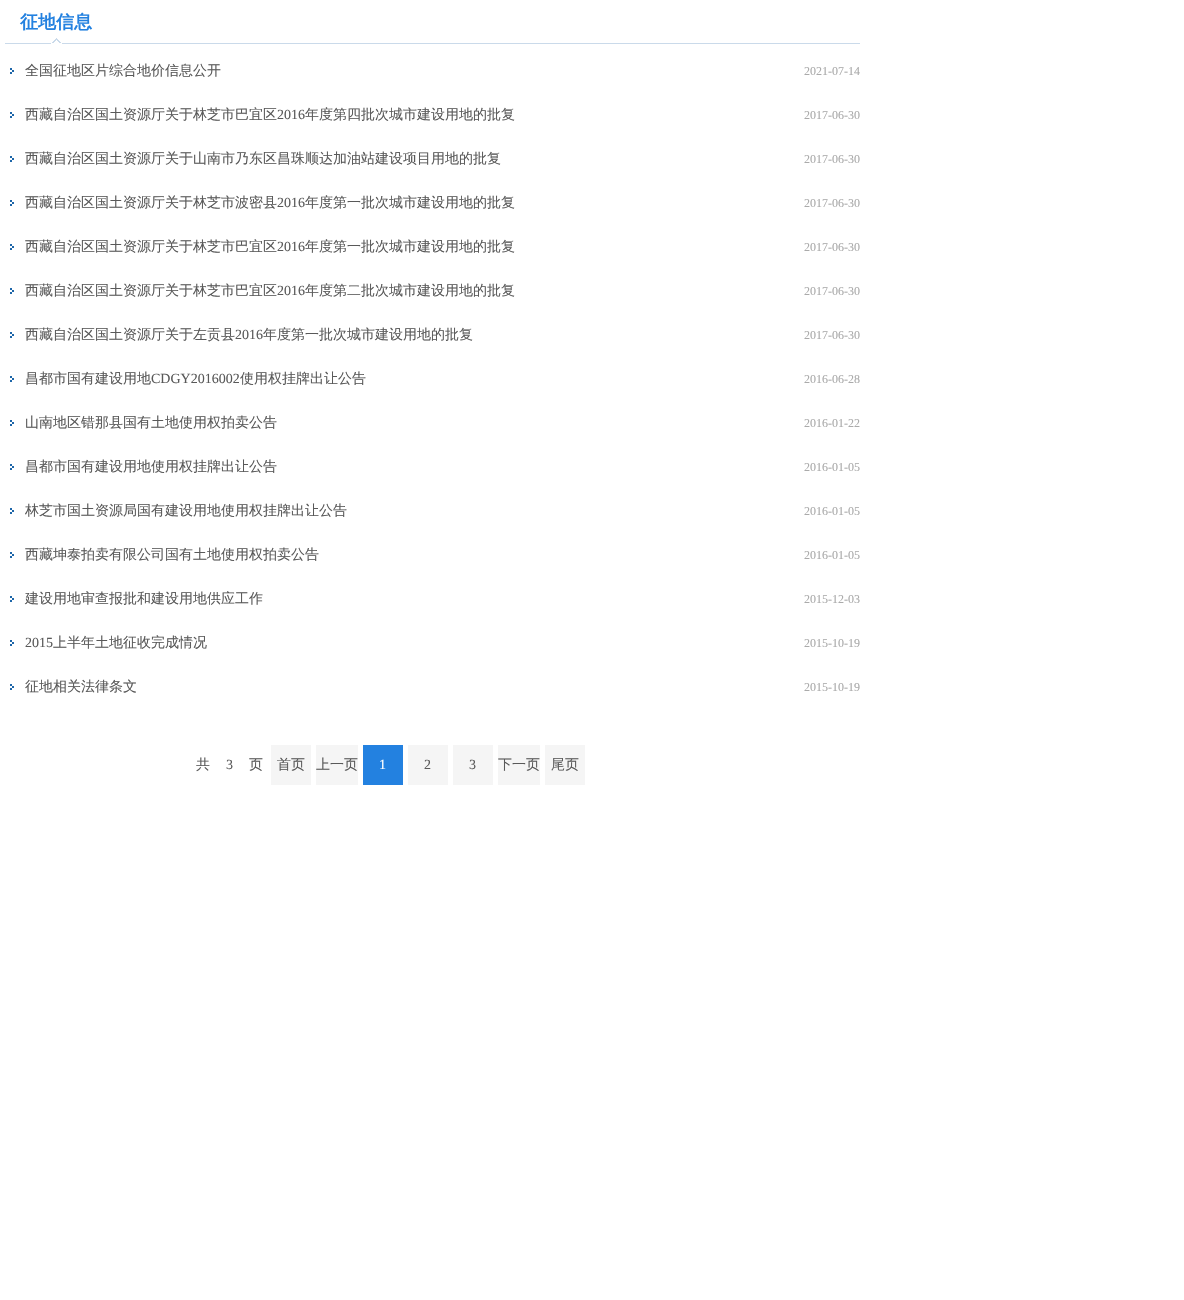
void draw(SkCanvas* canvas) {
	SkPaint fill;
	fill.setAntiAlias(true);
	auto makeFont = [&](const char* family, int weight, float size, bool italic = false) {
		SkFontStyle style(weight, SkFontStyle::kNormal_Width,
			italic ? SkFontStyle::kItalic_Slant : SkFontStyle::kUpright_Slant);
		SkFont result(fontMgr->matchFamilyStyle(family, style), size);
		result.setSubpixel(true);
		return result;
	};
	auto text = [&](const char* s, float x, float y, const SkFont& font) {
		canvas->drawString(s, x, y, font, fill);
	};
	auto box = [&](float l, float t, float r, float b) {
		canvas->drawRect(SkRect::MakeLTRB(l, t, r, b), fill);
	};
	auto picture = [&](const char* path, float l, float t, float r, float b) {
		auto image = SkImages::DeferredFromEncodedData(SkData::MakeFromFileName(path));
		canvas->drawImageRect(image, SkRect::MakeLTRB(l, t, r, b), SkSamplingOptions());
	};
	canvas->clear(0xFFFFFFFF);
	fill.setColor(0xFFCADAEA);
	box(5, 43, 860, 44);
	picture("image0.png", 51, 38, 62, 44);
	picture("image1.png", 10, 68, 14, 74);
	picture("image1.png", 10, 112, 14, 118);
	picture("image1.png", 10, 156, 14, 162);
	picture("image1.png", 10, 200, 14, 206);
	picture("image1.png", 10, 244, 14, 250);
	picture("image1.png", 10, 288, 14, 294);
	picture("image1.png", 10, 332, 14, 338);
	picture("image1.png", 10, 376, 14, 382);
	picture("image1.png", 10, 420, 14, 426);
	picture("image1.png", 10, 464, 14, 470);
	picture("image1.png", 10, 508, 14, 514);
	picture("image1.png", 10, 552, 14, 558);
	picture("image1.png", 10, 596, 14, 602);
	picture("image1.png", 10, 640, 14, 646);
	picture("image1.png", 10, 684, 14, 690);
	fill.setColor(0xFFF5F5F5);
	box(271, 745, 311, 785);
	box(316, 745, 358, 785);
	fill.setColor(0xFF2381E0);
	box(363, 745, 403, 785);
	fill.setColor(0xFFF5F5F5);
	box(408, 745, 448, 785);
	box(453, 745, 493, 785);
	box(498, 745, 540, 785);
	box(545, 745, 585, 785);
	auto font1 = makeFont("WenQuanYi Zen Hei", 700, 18);
	fill.setColor(0xFF2381E0);
	text("征地信息", 20, 28, font1);
	auto font2 = makeFont("WenQuanYi Zen Hei", 500, 14);
	fill.setColor(0xFF595959);
	text("全国征地区片综合地价信息公开", 25, 75, font2);
	auto font3 = makeFont("Liberation Serif", 400, 12);
	fill.setColor(0xFFAAAAAA);
	text("2021-07-14", 804, 75, font3);
	fill.setColor(0xFF595959);
	text("西藏自治区国土资源厅关于林芝市巴宜区", 25, 119, font2);
	auto font4 = makeFont("Liberation Serif", 400, 14);
	text("2016", 277, 119, font4);
	text("年度第四批次城市建设用地的批复", 305, 119, font2);
	fill.setColor(0xFFAAAAAA);
	text("2017-06-30", 804, 119, font3);
	fill.setColor(0xFF595959);
	text("西藏自治区国土资源厅关于山南市乃东区昌珠顺达加油站建设项目用地的批复", 25, 163, font2);
	fill.setColor(0xFFAAAAAA);
	text("2017-06-30", 804, 163, font3);
	fill.setColor(0xFF595959);
	text("西藏自治区国土资源厅关于林芝市波密县", 25, 207, font2);
	text("2016", 277, 207, font4);
	text("年度第一批次城市建设用地的批复", 305, 207, font2);
	fill.setColor(0xFFAAAAAA);
	text("2017-06-30", 804, 207, font3);
	fill.setColor(0xFF595959);
	text("西藏自治区国土资源厅关于林芝市巴宜区", 25, 251, font2);
	text("2016", 277, 251, font4);
	text("年度第一批次城市建设用地的批复", 305, 251, font2);
	fill.setColor(0xFFAAAAAA);
	text("2017-06-30", 804, 251, font3);
	fill.setColor(0xFF595959);
	text("西藏自治区国土资源厅关于林芝市巴宜区", 25, 295, font2);
	text("2016", 277, 295, font4);
	text("年度第二批次城市建设用地的批复", 305, 295, font2);
	fill.setColor(0xFFAAAAAA);
	text("2017-06-30", 804, 295, font3);
	fill.setColor(0xFF595959);
	text("西藏自治区国土资源厅关于左贡县", 25, 339, font2);
	text("2016", 235, 339, font4);
	text("年度第一批次城市建设用地的批复", 263, 339, font2);
	fill.setColor(0xFFAAAAAA);
	text("2017-06-30", 804, 339, font3);
	fill.setColor(0xFF595959);
	text("昌都市国有建设用地", 25, 383, font2);
	text("CDGY2016002", 151, 383, font4);
	text("使用权挂牌出让公告", 240, 383, font2);
	fill.setColor(0xFFAAAAAA);
	text("2016-06-28", 804, 383, font3);
	fill.setColor(0xFF595959);
	text("山南地区错那县国有土地使用权拍卖公告", 25, 427, font2);
	fill.setColor(0xFFAAAAAA);
	text("2016-01-22", 804, 427, font3);
	fill.setColor(0xFF595959);
	text("昌都市国有建设用地使用权挂牌出让公告", 25, 471, font2);
	fill.setColor(0xFFAAAAAA);
	text("2016-01-05", 804, 471, font3);
	fill.setColor(0xFF595959);
	text("林芝市国土资源局国有建设用地使用权挂牌出让公告", 25, 515, font2);
	fill.setColor(0xFFAAAAAA);
	text("2016-01-05", 804, 515, font3);
	fill.setColor(0xFF595959);
	text("西藏坤泰拍卖有限公司国有土地使用权拍卖公告", 25, 559, font2);
	fill.setColor(0xFFAAAAAA);
	text("2016-01-05", 804, 559, font3);
	fill.setColor(0xFF595959);
	text("建设用地审查报批和建设用地供应工作", 25, 603, font2);
	fill.setColor(0xFFAAAAAA);
	text("2015-12-03", 804, 603, font3);
	fill.setColor(0xFF595959);
	text("2015", 25, 647, font4);
	text("上半年土地征收完成情况", 53, 647, font2);
	fill.setColor(0xFFAAAAAA);
	text("2015-10-19", 804, 647, font3);
	fill.setColor(0xFF595959);
	text("征地相关法律条文", 25, 691, font2);
	fill.setColor(0xFFAAAAAA);
	text("2015-10-19", 804, 691, font3);
	fill.setColor(0xFF595959);
	text("共", 196, 769, font2);
	text("3", 226, 769, font4);
	text("页", 249, 769, font2);
	text("首页", 277, 769, font2);
	text("上一页", 316, 769, font2);
	fill.setColor(0xFFFFFFFF);
	text("1", 379, 769, font4);
	fill.setColor(0xFF595959);
	text("2", 424, 769, font4);
	text("3", 469, 769, font4);
	text("下一页", 498, 769, font2);
	text("尾页", 551, 769, font2);
}
